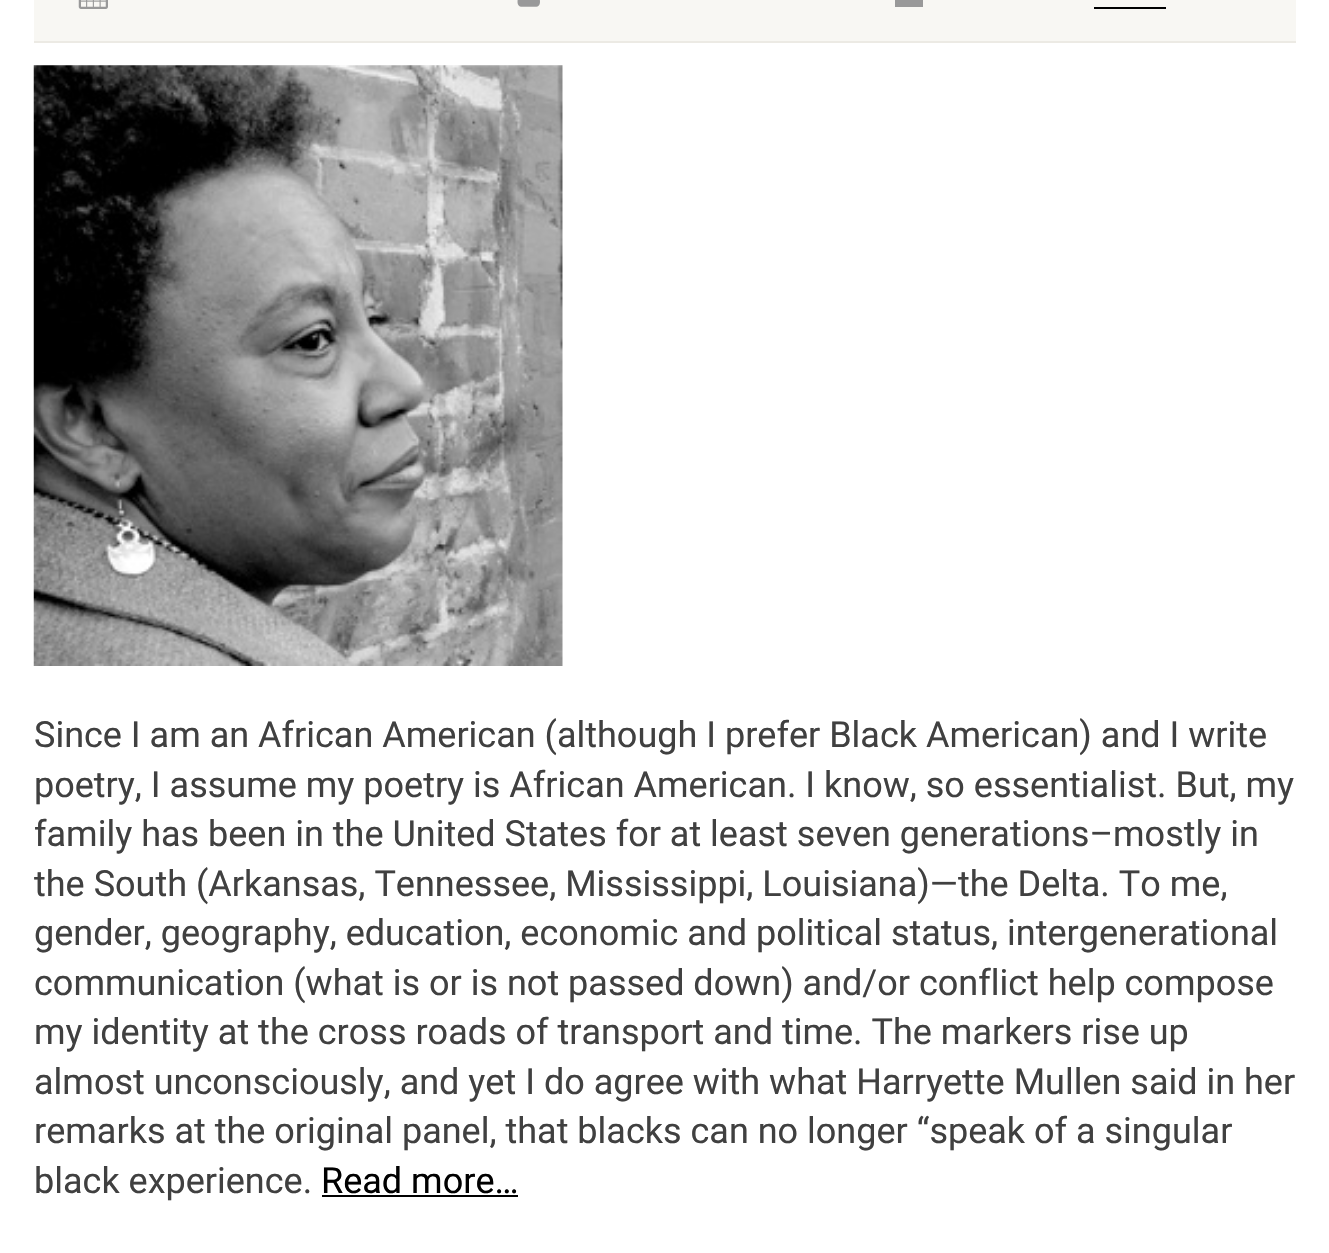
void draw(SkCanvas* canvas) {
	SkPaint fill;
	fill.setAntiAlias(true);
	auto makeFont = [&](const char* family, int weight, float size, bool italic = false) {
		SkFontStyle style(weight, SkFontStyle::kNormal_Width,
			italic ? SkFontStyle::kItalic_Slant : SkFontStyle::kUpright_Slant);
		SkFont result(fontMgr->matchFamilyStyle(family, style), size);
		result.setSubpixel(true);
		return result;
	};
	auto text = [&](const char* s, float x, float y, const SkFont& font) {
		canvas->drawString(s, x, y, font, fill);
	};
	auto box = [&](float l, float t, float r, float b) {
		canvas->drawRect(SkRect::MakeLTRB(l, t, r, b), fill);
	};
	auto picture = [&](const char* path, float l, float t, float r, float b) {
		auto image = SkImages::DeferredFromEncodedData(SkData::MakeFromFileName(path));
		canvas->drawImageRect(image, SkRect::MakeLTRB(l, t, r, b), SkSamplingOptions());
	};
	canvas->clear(0xFFFFFFFF);
	fill.setColor(0xFFF8F7F3);
	box(34, 0, 1296, 41);
	fill.setColor(0xFFECEAE4);
	box(34, 41, 1296, 43);
	picture("image0.png", 78, 0, 108, 9);
	picture("image1.png", 517, 0, 540, 7);
	fill.setColor(0xFF999999);
	box(895, 0, 923, 7);
	fill.setColor(0xFF000000);
	box(1094, 7, 1166, 9);
	picture("image2.png", 33, 65, 563, 666);
	box(322, 1195, 518, 1197);
	auto font1 = makeFont("Roboto", 400, 36);
	fill.setColor(0xFF404040);
	text("Since I am an African American (although I prefer Black American) and I write", 34, 747, font1);
	text("poetry, I assume my poetry is African American. I know, so essentialist. But, my", 34, 797, font1);
	text("family has been in the United States for at least seven generations–mostly in", 34, 846, font1);
	text("the South (Arkansas, Tennessee, Mississippi, Louisiana)—the Delta. To me,", 34, 896, font1);
	text("gender, geography, education, economic and political status, intergenerational", 34, 945, font1);
	text("communication (what is or is not passed down) and/or conflict help compose", 34, 995, font1);
	text("my identity at the cross roads of transport and time. The markers rise up", 34, 1044, font1);
	text("almost unconsciously, and yet I do agree with what Harryette Mullen said in her", 34, 1094, font1);
	text("remarks at the original panel, that blacks can no longer “speak of a singular", 34, 1143, font1);
	text("black experience.", 34, 1193, font1);
	fill.setColor(0xFF000000);
	text("Read more…", 321, 1193, font1);
}
